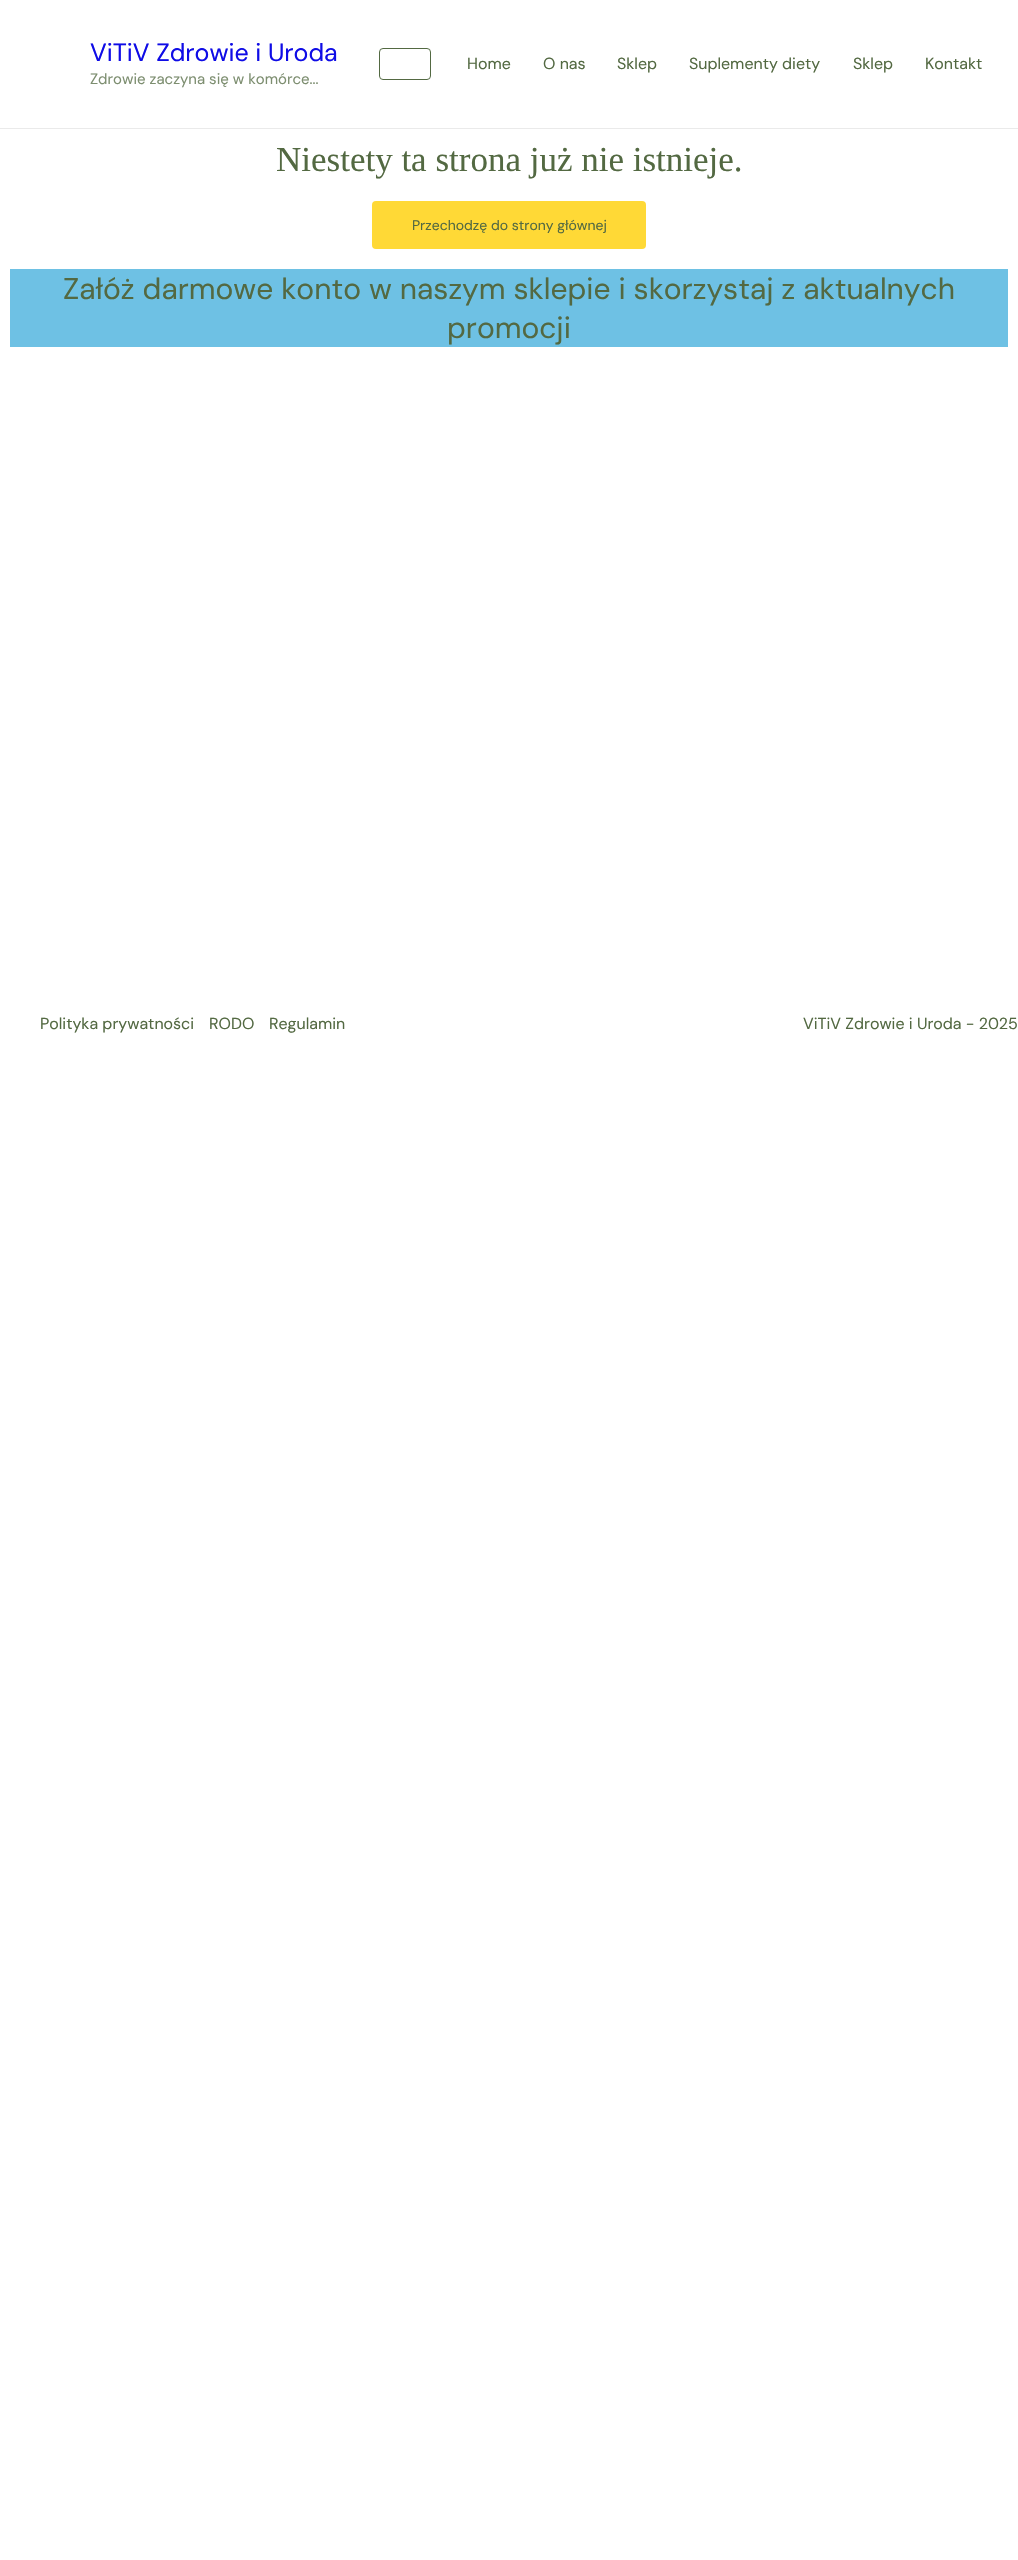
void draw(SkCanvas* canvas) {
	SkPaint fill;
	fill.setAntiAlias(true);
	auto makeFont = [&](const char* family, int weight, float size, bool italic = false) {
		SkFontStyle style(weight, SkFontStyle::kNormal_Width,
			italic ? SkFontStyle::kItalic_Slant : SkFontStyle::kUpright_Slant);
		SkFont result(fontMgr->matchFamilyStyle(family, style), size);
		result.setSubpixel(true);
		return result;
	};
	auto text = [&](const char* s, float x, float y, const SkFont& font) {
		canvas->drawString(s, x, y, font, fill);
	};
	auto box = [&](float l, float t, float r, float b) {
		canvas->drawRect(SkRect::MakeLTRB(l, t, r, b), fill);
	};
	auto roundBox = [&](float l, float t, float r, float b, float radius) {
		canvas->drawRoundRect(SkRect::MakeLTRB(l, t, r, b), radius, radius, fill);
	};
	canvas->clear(0xFFFFFFFF);
	fill.setColor(0xFFEAEAEA);
	box(0, 128, 1018, 129);
	fill.setStyle(SkPaint::kStroke_Style);
	fill.setStrokeWidth(1);
	fill.setColor(0xFF536942);
	canvas->drawRoundRect(SkRect::MakeLTRB(379.5f, 48.5f, 430.5f, 79.5f), 3.5f, 3.5f, fill);
	fill.setStyle(SkPaint::kFill_Style);
	fill.setColor(0xFFFFD936);
	roundBox(372, 201, 646, 249, 4);
	fill.setColor(0xFF6EC1E4);
	box(10, 269, 1008, 347);
	auto font1 = makeFont("DM Sans", 400, 25);
	fill.setColor(0xFF0F0CE6);
	text("ViTiV Zdrowie i Uroda", 90, 61, font1);
	auto font2 = makeFont("DM Sans", 400, 15);
	fill.setColor(0xFF7D8E70);
	text("Zdrowie zaczyna się w komórce...", 90, 84, font2);
	auto font3 = makeFont("DM Sans", 400, 16);
	fill.setColor(0xFF536942);
	text("Home", 467, 69, font3);
	text("O nas", 543, 69, font3);
	text("Sklep", 617, 69, font3);
	text("Suplementy diety", 689, 69, font3);
	text("Sklep", 853, 69, font3);
	text("Kontakt", 925, 69, font3);
	auto font4 = makeFont("Liberation Serif", 400, 35);
	text("Niestety ta strona już nie istnieje.", 276, 171, font4);
	auto font5 = makeFont("DM Sans", 400, 14);
	text("Przechodzę do strony głównej", 412, 230, font5);
	auto font6 = makeFont("DM Sans", 400, 30);
	text("Załóż darmowe konto w naszym sklepie i skorzystaj z aktualnych", 63, 299, font6);
	text("promocji", 447, 338, font6);
	text("Polityka prywatności", 40, 1029, font3);
	text("RODO", 209, 1029, font3);
	text("Regulamin", 269, 1029, font3);
	text("ViTiV Zdrowie i Uroda - 2025", 803, 1029, font3);
}
